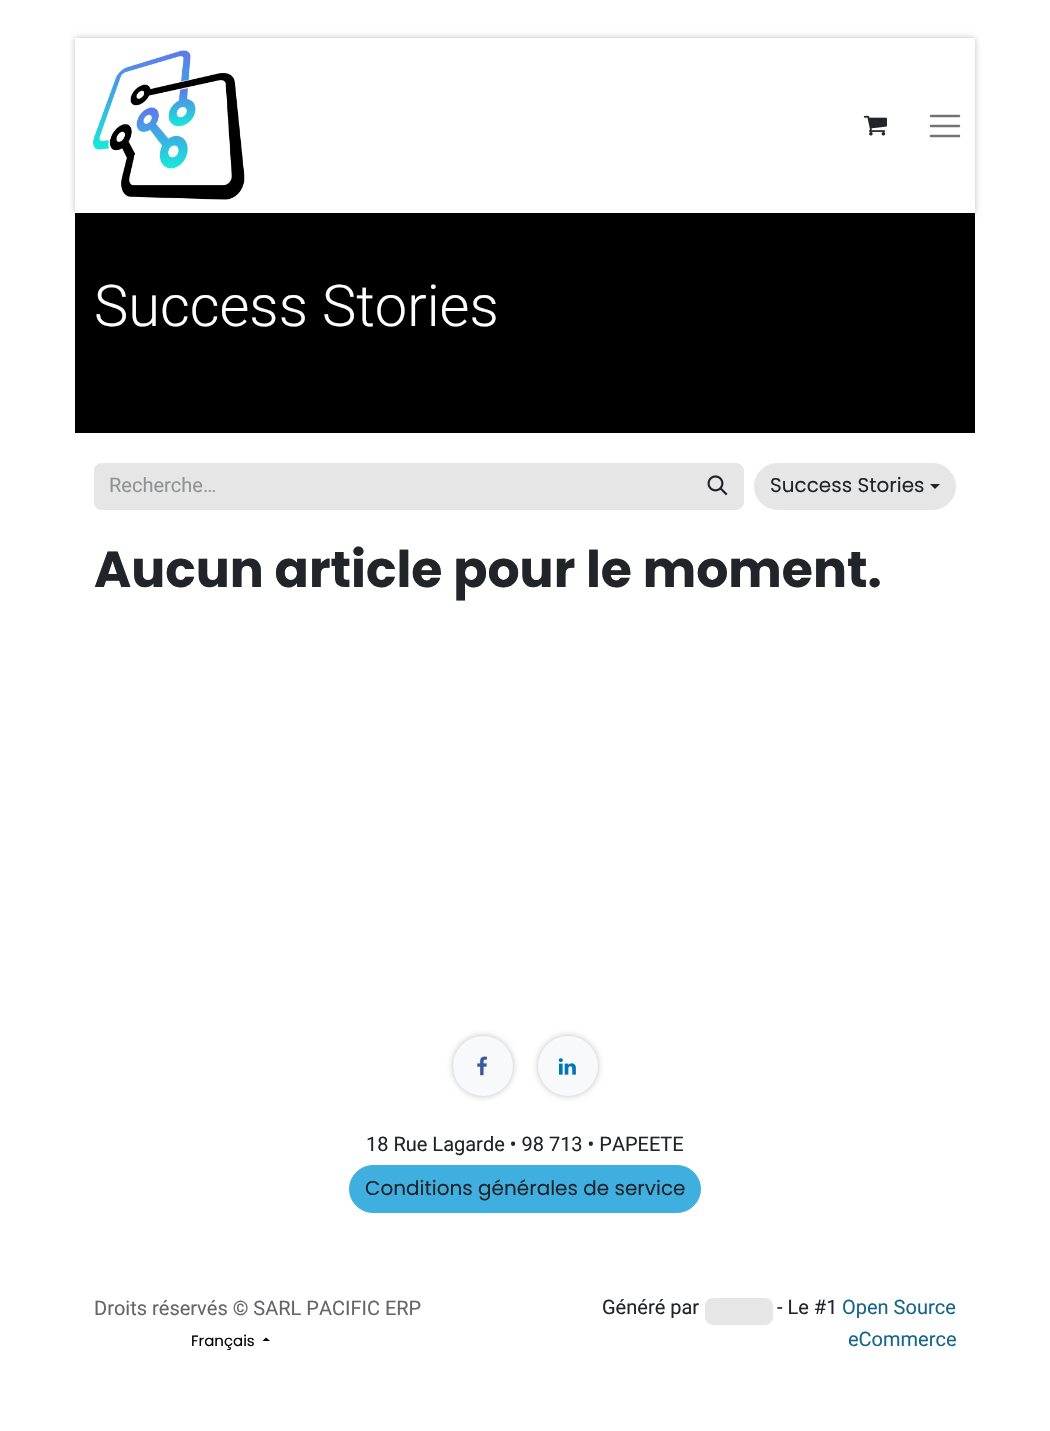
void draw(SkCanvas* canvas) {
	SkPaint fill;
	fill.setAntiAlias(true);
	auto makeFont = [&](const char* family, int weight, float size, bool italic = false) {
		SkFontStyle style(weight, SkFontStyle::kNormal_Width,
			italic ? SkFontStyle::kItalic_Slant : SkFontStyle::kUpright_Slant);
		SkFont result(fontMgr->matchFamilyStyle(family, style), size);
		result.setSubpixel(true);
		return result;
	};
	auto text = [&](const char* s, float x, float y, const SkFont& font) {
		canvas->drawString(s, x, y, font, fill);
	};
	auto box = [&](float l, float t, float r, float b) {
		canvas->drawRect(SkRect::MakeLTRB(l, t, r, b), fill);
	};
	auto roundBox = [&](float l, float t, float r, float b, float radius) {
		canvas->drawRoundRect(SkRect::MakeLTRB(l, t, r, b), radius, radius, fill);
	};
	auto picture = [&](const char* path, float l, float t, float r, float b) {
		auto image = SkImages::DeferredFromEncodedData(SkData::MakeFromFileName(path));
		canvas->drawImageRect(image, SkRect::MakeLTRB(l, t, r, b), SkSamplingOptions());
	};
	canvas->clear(0xFFFFFFFF);
	fill.setColor(0xFF000000);
	box(75, 213, 975, 433);
	fill.setColor(0x40000000);
	fill.setMaskFilter(SkMaskFilter::MakeBlur(kNormal_SkBlurStyle, 3));
	canvas->drawRect(SkRect::MakeLTRB(75, 38, 975, 213), fill);
	fill.setMaskFilter(nullptr);
	fill.setColor(0xFFFFFFFF);
	box(75, 38, 975, 213);
	picture("image0.png", 93, 50, 245, 200);
	picture("image1.png", 863, 115, 887, 136);
	fill.setStyle(SkPaint::kStroke_Style);
	fill.setStrokeWidth(2.5f);
	fill.setStrokeCap(SkPaint::kRound_Cap);
	fill.setColor(0xFF737373);
	canvas->drawPath(SkPathBuilder().moveTo(931, 116).lineTo(959, 116).moveTo(931, 126).lineTo(959, 126).moveTo(931, 136).lineTo(959, 136).detach(), fill);
	fill.setStyle(SkPaint::kFill_Style);
	fill.setColor(0xFFE6E6E6);
	canvas->drawPath(SkPathBuilder().moveTo(102, 463).lineTo(693, 463).lineTo(693, 510).lineTo(102, 510).cubicTo(97.5f, 510, 94, 506.5f, 94, 502).lineTo(94, 471).cubicTo(94, 466.5f, 97.5f, 463, 102, 463).close().detach(), fill);
	canvas->drawPath(SkPathBuilder().moveTo(691.5f, 463.5f).lineTo(736, 463.5f).cubicTo(740, 463.5f, 743.5f, 467, 743.5f, 471).lineTo(743.5f, 502).cubicTo(743.5f, 506, 740, 509.5f, 736, 509.5f).lineTo(691.5f, 509.5f).close().detach(), fill);
	fill.setStyle(SkPaint::kStroke_Style);
	fill.setStrokeWidth(1);
	fill.setStrokeCap(SkPaint::kButt_Cap);
	canvas->drawPath(SkPathBuilder().moveTo(691.5f, 463.5f).lineTo(736, 463.5f).cubicTo(740, 463.5f, 743.5f, 467, 743.5f, 471).lineTo(743.5f, 502).cubicTo(743.5f, 506, 740, 509.5f, 736, 509.5f).lineTo(691.5f, 509.5f).close().detach(), fill);
	picture("image2.png", 707, 475, 728, 496);
	fill.setStyle(SkPaint::kFill_Style);
	canvas->drawRoundRect(SkRect::MakeLTRB(754.5f, 463.5f, 955.5f, 509.5f), 23, 23, fill);
	fill.setStyle(SkPaint::kStroke_Style);
	canvas->drawRoundRect(SkRect::MakeLTRB(754.5f, 463.5f, 955.5f, 509.5f), 23, 23, fill);
	fill.setStyle(SkPaint::kFill_Style);
	fill.setColor(0xFF212529);
	canvas->drawPath(SkPathBuilder().moveTo(930, 484).lineTo(940, 484).lineTo(935, 489).close().detach(), fill);
	fill.setColor(0x40000000);
	fill.setMaskFilter(SkMaskFilter::MakeBlur(kNormal_SkBlurStyle, 3));
	canvas->drawRoundRect(SkRect::MakeLTRB(453, 1036, 513, 1096), 30, 30, fill);
	fill.setMaskFilter(nullptr);
	fill.setColor(0xFFF8F9FA);
	canvas->drawCircle(483, 1066, 30, fill);
	picture("image3.png", 477, 1056, 487, 1076);
	fill.setColor(0x40000000);
	fill.setMaskFilter(SkMaskFilter::MakeBlur(kNormal_SkBlurStyle, 3));
	canvas->drawRoundRect(SkRect::MakeLTRB(538, 1036, 598, 1096), 30, 30, fill);
	fill.setMaskFilter(nullptr);
	fill.setColor(0xFFF8F9FA);
	canvas->drawCircle(568, 1066, 30, fill);
	picture("image4.png", 558, 1058, 576, 1075);
	fill.setColor(0xFF3FAFE0);
	canvas->drawRoundRect(SkRect::MakeLTRB(349.5f, 1165.5f, 700.5f, 1212.5f), 23.5f, 23.5f, fill);
	fill.setStyle(SkPaint::kStroke_Style);
	canvas->drawRoundRect(SkRect::MakeLTRB(349.5f, 1165.5f, 700.5f, 1212.5f), 23.5f, 23.5f, fill);
	fill.setStyle(SkPaint::kFill_Style);
	fill.setColor(0xFF000000);
	canvas->drawPath(SkPathBuilder().moveTo(270, 1341).lineTo(262.5f, 1341).lineTo(266, 1337.5f).close().detach(), fill);
	fill.setColor(0xFFE6E6E6);
	roundBox(705, 1298, 773, 1325, 8);
	auto font1 = makeFont("Roboto", 300, 57.75f);
	fill.setColor(0xFFFFFFFF);
	text("Success Stories", 94, 326, font1);
	auto font2 = makeFont("Roboto", 400, 20);
	fill.setColor(0xFF909294);
	text("Recherche…", 109, 492, font2);
	auto font3 = makeFont("Poppins", 400, 20);
	fill.setColor(0xFF212529);
	text("Success Stories", 770, 492, font3);
	auto font4 = makeFont("Poppins", 700, 50.5f);
	text("Aucun article pour le moment.", 94, 587, font4);
	text("18 Rue Lagarde • 98 713 • PAPEETE", 366, 1151, font2);
	text("Conditions générales de service", 365, 1195, font3);
	fill.setColor(0xFF646669);
	text("Droits réservés © SARL PACIFIC ERP", 94, 1315, font2);
	auto font5 = makeFont("Poppins", 400, 15);
	fill.setColor(0xFF000000);
	text("Français", 191, 1346, font5);
	fill.setColor(0xFF212529);
	text("Généré par", 602, 1314, font2);
	text("- Le #1", 777, 1314, font2);
	fill.setColor(0xFF166689);
	text("Open Source", 842, 1314, font2);
	text("eCommerce", 848, 1346, font2);
}
